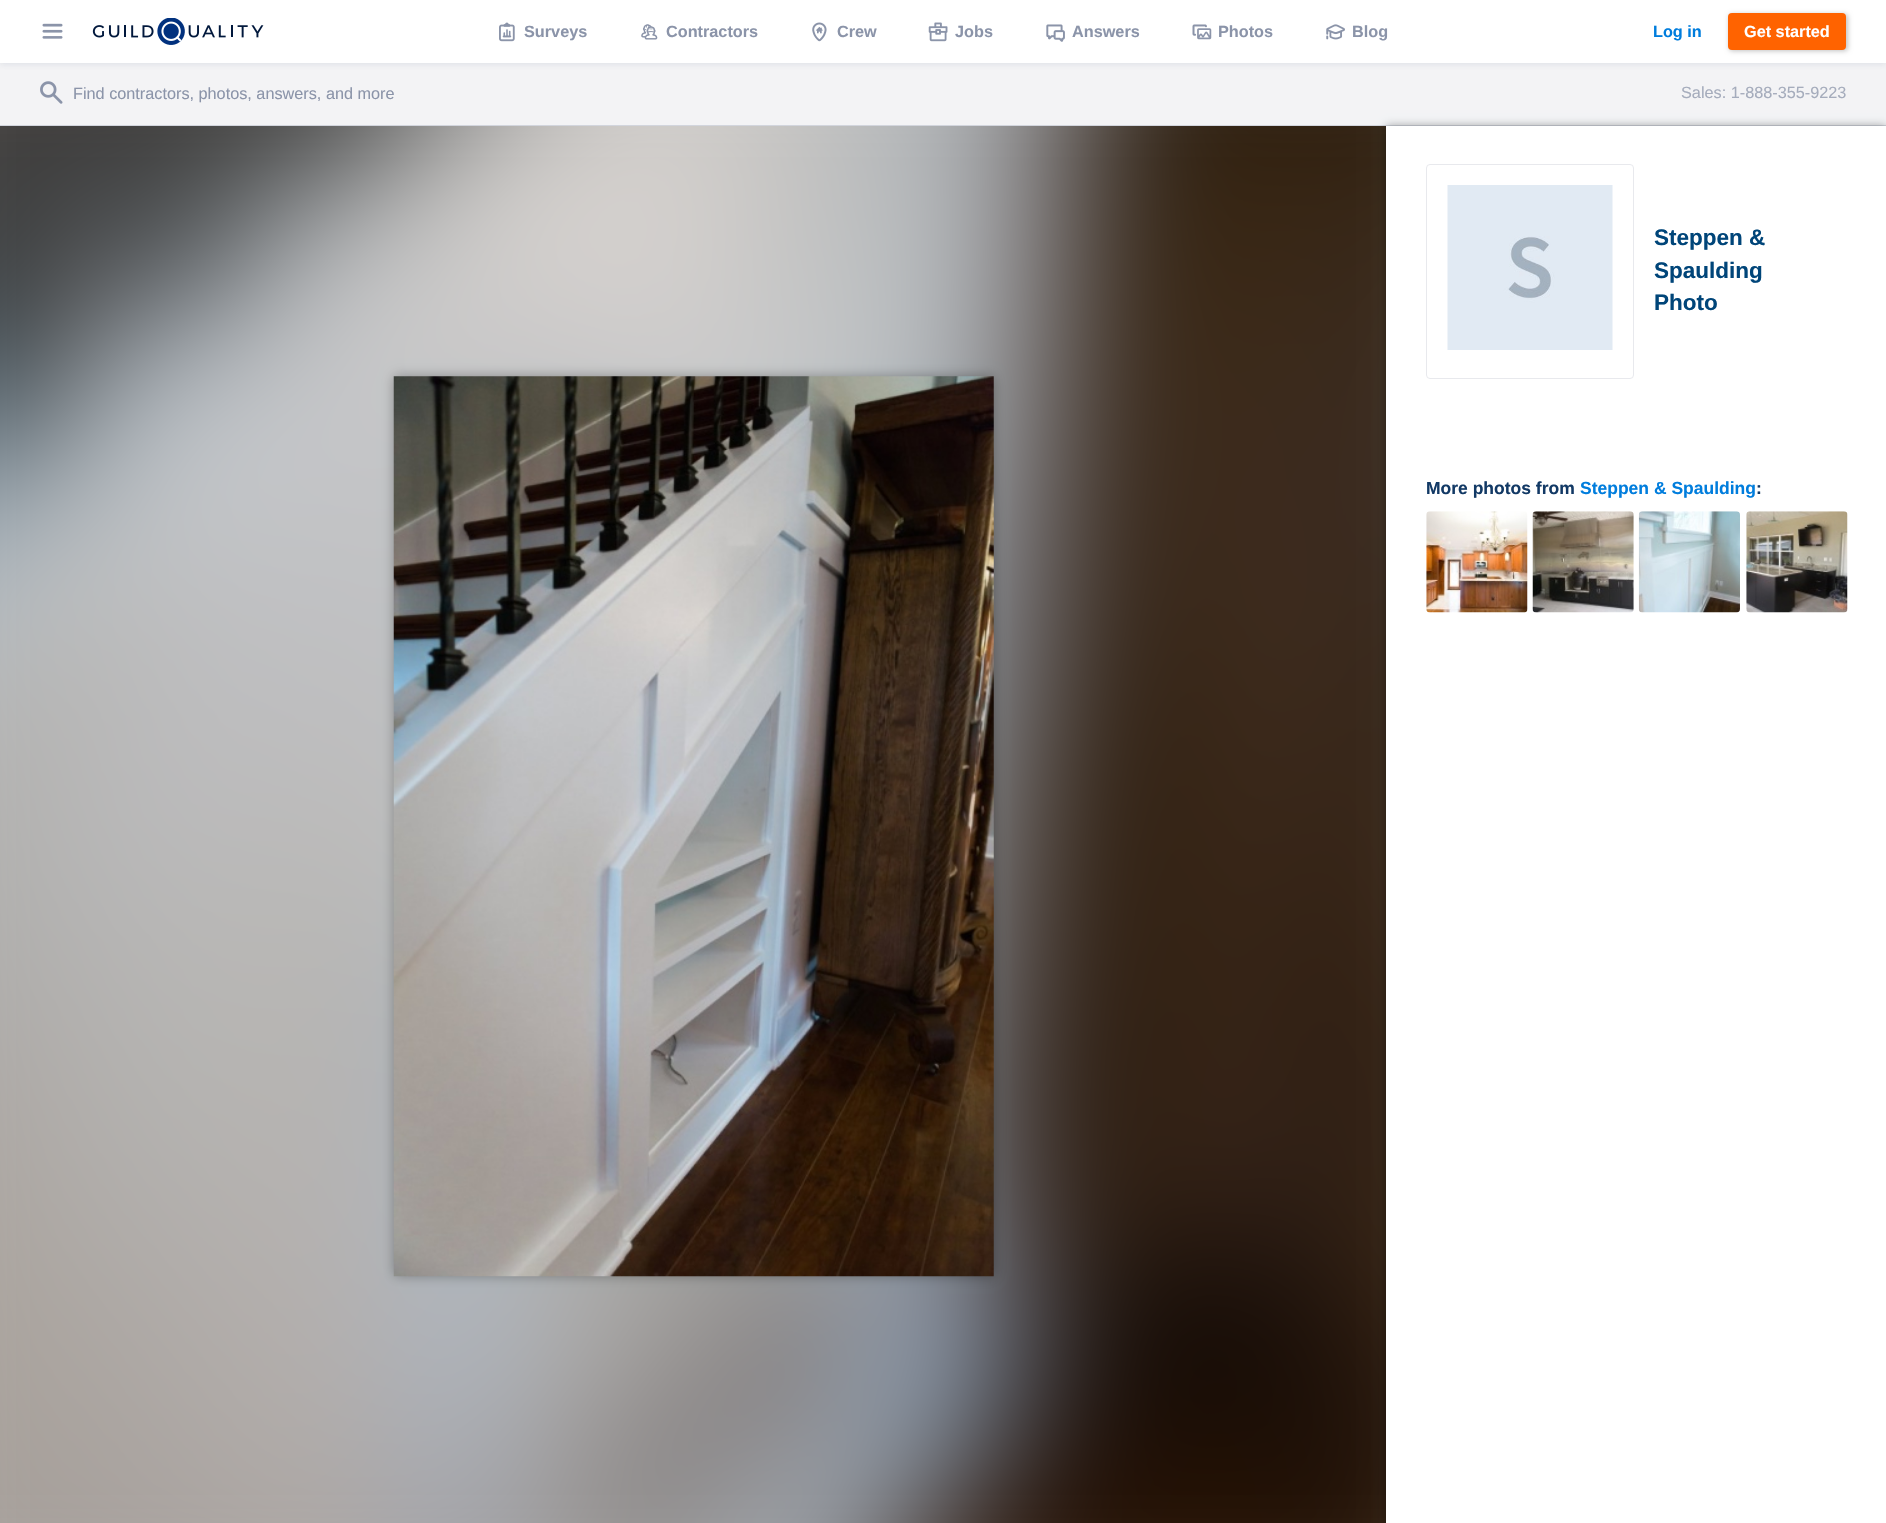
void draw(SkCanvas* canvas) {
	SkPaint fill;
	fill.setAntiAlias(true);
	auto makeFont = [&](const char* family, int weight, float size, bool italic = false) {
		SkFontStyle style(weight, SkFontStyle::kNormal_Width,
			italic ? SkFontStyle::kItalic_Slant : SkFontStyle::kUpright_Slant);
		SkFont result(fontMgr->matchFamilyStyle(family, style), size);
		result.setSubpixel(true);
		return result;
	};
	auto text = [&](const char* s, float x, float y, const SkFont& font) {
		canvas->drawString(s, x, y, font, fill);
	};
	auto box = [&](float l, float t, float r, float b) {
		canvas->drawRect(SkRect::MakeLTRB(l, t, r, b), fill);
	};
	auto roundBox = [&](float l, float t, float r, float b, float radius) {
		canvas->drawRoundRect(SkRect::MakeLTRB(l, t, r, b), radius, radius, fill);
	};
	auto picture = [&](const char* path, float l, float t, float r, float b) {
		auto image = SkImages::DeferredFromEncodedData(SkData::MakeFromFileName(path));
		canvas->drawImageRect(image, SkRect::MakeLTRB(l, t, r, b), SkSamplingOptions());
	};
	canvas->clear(0xFFFFFFFF);
	fill.setColor(0xFFF3F3F5);
	box(0, 63, 1886, 125);
	fill.setColor(0x1F334A6D);
	fill.setMaskFilter(SkMaskFilter::MakeBlur(kNormal_SkBlurStyle, 3));
	canvas->drawRect(SkRect::MakeLTRB(0, 1, 1886, 64), fill);
	fill.setMaskFilter(nullptr);
	fill.setColor(0xFFFFFFFF);
	box(0, 0, 1886, 63);
	picture("image0.png", 42, 23, 63, 39);
	picture("image1.png", 92, 18, 264, 45);
	picture("image2.png", 499, 22, 515, 42);
	picture("image3.png", 641, 24, 658, 40);
	picture("image4.png", 812, 22, 827, 42);
	picture("image5.png", 928, 22, 948, 42);
	picture("image6.png", 1046, 24, 1065, 42);
	picture("image7.png", 1192, 24, 1212, 40);
	picture("image8.png", 1326, 24, 1345, 40);
	fill.setColor(0x3D000000);
	fill.setMaskFilter(SkMaskFilter::MakeBlur(kNormal_SkBlurStyle, 2.5f));
	canvas->drawRoundRect(SkRect::MakeLTRB(1729, 14, 1848, 51), 4, 4, fill);
	fill.setMaskFilter(nullptr);
	fill.setColor(0xFFFF6300);
	roundBox(1728, 13, 1846, 50, 4);
	fill.setColor(0xFFD2D5DD);
	box(0, 125, 1886, 126);
	picture("image9.png", 40, 81, 63, 104);
	picture("image10.png", 0, 126, 1386, 1523);
	fill.setColor(0x4D010202);
	fill.setMaskFilter(SkMaskFilter::MakeBlur(kNormal_SkBlurStyle, 6));
	canvas->drawRect(SkRect::MakeLTRB(394, 376, 994, 1276), fill);
	fill.setMaskFilter(nullptr);
	picture("image11.png", 393, 376, 994, 1277);
	fill.setColor(0x5C010202);
	fill.setMaskFilter(SkMaskFilter::MakeBlur(kNormal_SkBlurStyle, 4.5f));
	canvas->drawRect(SkRect::MakeLTRB(1386, 126, 1886, 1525), fill);
	fill.setMaskFilter(nullptr);
	fill.setColor(0xFFFFFFFF);
	box(1386, 126, 1886, 1523);
	fill.setStyle(SkPaint::kStroke_Style);
	fill.setStrokeWidth(1);
	fill.setColor(0xFFE8E9ED);
	canvas->drawRoundRect(SkRect::MakeLTRB(1426.5f, 164.5f, 1633.5f, 378.5f), 3.5f, 3.5f, fill);
	picture("image12.png", 1447, 185, 1613, 350);
	picture("image13.png", 1426, 511, 1528, 613);
	picture("image14.png", 1532, 511, 1634, 613);
	picture("image15.png", 1638, 511, 1740, 613);
	picture("image16.png", 1746, 511, 1848, 613);
	auto font1 = makeFont("Liberation Sans", 700, 16.25f);
	fill.setStyle(SkPaint::kFill_Style);
	fill.setColor(0xFF8B94A9);
	text("Surveys", 524, 37, font1);
	text("Contractors", 666, 37, font1);
	text("Crew", 837, 37, font1);
	text("Jobs", 955, 37, font1);
	text("Answers", 1072, 37, font1);
	text("Photos", 1218, 37, font1);
	text("Blog", 1352, 37, font1);
	fill.setColor(0xFF007DDD);
	text("Log in", 1653, 37, font1);
	fill.setColor(0xFFFFFFFF);
	text("Get started", 1744, 37, font1);
	auto font2 = makeFont("Liberation Sans", 400, 16.25f);
	fill.setColor(0xFF8B94A9);
	text("Find contractors, photos, answers, and more", 73, 99, font2);
	fill.setColor(0xFFA5ACBC);
	text("Sales: 1-888-355-9223", 1681, 98, font2);
	auto font3 = makeFont("Liberation Sans", 700, 22.5f);
	fill.setColor(0xFF004579);
	text("Steppen &", 1654, 245, font3);
	text("Spaulding", 1654, 278, font3);
	text("Photo", 1654, 310, font3);
	auto font4 = makeFont("Liberation Sans", 700, 17.5f);
	fill.setColor(0xFF123965);
	text("More photos from", 1426, 494, font4);
	fill.setColor(0xFF007DDD);
	text("Steppen & Spaulding", 1580, 494, font4);
	fill.setColor(0xFF123965);
	text(":", 1756, 494, font4);
}
